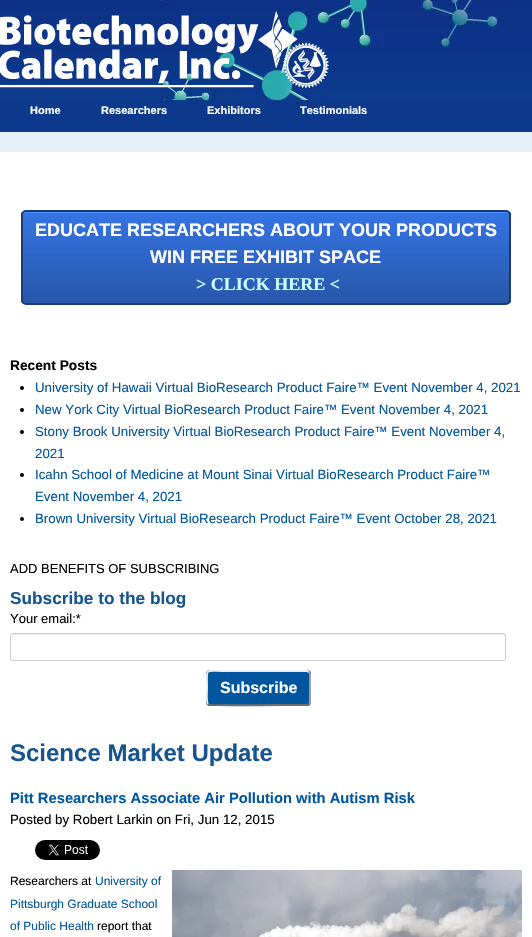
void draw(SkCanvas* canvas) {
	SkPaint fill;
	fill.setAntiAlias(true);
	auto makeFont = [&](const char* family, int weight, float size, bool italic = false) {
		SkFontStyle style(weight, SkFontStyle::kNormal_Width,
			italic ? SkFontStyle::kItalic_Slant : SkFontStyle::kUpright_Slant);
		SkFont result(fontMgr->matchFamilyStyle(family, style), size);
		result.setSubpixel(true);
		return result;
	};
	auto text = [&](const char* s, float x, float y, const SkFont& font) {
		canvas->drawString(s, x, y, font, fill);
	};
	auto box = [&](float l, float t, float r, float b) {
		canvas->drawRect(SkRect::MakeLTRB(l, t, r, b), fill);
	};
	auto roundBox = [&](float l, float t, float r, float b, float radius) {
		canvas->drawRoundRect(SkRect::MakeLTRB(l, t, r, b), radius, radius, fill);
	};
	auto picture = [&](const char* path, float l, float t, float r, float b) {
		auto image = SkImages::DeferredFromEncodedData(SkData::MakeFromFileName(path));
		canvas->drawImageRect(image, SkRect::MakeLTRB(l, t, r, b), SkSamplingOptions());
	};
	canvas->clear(0xFFE6F0F9);
	fill.setColor(0xFF0C398C);
	box(0, 100, 532, 132);
	picture("image0.png", 0, 0, 532, 100);
	picture("image1.png", 0, 11, 329, 89);
	fill.setColor(0xFFFFFFFF);
	box(0, 152, 532, 937);
	canvas->save();
	canvas->clipPath(SkPathBuilder().moveTo(26, 210).lineTo(506, 210).cubicTo(509, 210, 511, 212, 511, 215).lineTo(511, 300).cubicTo(511, 303, 509, 305, 506, 305).lineTo(26, 305).cubicTo(23, 305, 21, 303, 21, 300).lineTo(21, 215).cubicTo(21, 212, 23, 210, 26, 210).close().detach(), true);
	{
		const SkColor colors[] = {0xFF3574E3, 0xFF2757AA};
		const float stops[] = {0, 1};
		const SkPoint ends[] = {{266, 212}, {266, 303}};
		fill.setShader(SkGradientShader::MakeLinear(ends, colors, stops, 2, SkTileMode::kClamp));
		fill.setAlpha(255);
	}
	box(21, 212, 511, 303);
	canvas->restore();
	fill.setShader(nullptr);
	fill.setColor(0xFF4291FF);
	canvas->drawPath(SkPathBuilder().moveTo(26, 213).lineTo(506, 213).cubicTo(508, 213, 509, 214, 509, 216).lineTo(509, 215).cubicTo(509, 213, 508, 212, 506, 212).lineTo(26, 212).cubicTo(24, 212, 23, 213, 23, 215).lineTo(23, 216).cubicTo(23, 214, 24, 213, 26, 213).close().detach(), fill);
	fill.setStyle(SkPaint::kStroke_Style);
	fill.setStrokeWidth(2);
	fill.setColor(0xFF1A3A71);
	canvas->drawRoundRect(SkRect::MakeLTRB(22, 211, 510, 304), 4, 4, fill);
	fill.setStyle(SkPaint::kFill_Style);
	fill.setColor(0xFF000000);
	canvas->drawCircle(22, 388, 2, fill);
	canvas->drawCircle(22, 410, 2, fill);
	canvas->drawCircle(22, 432, 2, fill);
	canvas->drawCircle(22, 475, 2, fill);
	canvas->drawCircle(22, 519, 2, fill);
	fill.setColor(0xFFECECEC);
	canvas->drawPath(SkPathBuilder().moveTo(13, 635).lineTo(503, 635).cubicTo(504, 635, 505, 636, 505, 637).lineTo(505, 635).lineTo(503, 634).lineTo(12, 634).lineTo(12, 635).lineTo(11, 637).cubicTo(11, 636, 12, 635, 13, 635).close().detach(), fill);
	fill.setStyle(SkPaint::kStroke_Style);
	fill.setStrokeWidth(1);
	fill.setColor(0xFFCCCCCC);
	canvas->drawRoundRect(SkRect::MakeLTRB(10.5f, 633.5f, 505.5f, 660.5f), 2.5f, 2.5f, fill);
	fill.setStyle(SkPaint::kFill_Style);
	fill.setColor(0xFF00559F);
	roundBox(206, 670, 311, 706, 4);
	fill.setStyle(SkPaint::kStroke_Style);
	fill.setStrokeWidth(2);
	fill.setColor(0xFF9D9D9D);
	canvas->drawPath(SkPathBuilder().moveTo(309, 672).cubicTo(309.5f, 672.5f, 310, 673, 310, 674).lineTo(310, 702).cubicTo(310, 703, 309.5f, 703.5f, 309, 704).detach(), fill);
	fill.setColor(0xFF6E6E6E);
	canvas->drawPath(SkPathBuilder().moveTo(309, 704).lineTo(307, 705).lineTo(291, 705).cubicTo(282, 705, 210.5f, 706, 208.5f, 704.5f).lineTo(208, 704).detach(), fill);
	fill.setColor(0xFFECECEC);
	canvas->drawPath(SkPathBuilder().moveTo(208, 704).cubicTo(206, 702, 207, 691, 207, 688).cubicTo(207, 667, 203.5f, 671, 226, 671).lineTo(307, 671).lineTo(309, 672).detach(), fill);
	picture("image2.png", 35, 840, 100, 860);
	picture("image3.png", 172, 870, 522, 937);
	auto font1 = makeFont("Liberation Sans", 700, 11);
	fill.setStyle(SkPaint::kFill_Style);
	fill.setColor(0xFFFFFFFF);
	text("Home", 30, 114, font1);
	text("Researchers", 101, 114, font1);
	text("Exhibitors", 207, 114, font1);
	text("Testimonials", 300, 114, font1);
	auto font2 = makeFont("Liberation Sans", 700, 18);
	text("EDUCATE RESEARCHERS ABOUT YOUR PRODUCTS", 35, 236, font2);
	text("WIN FREE EXHIBIT SPACE", 150, 263, font2);
	auto font3 = makeFont("Liberation Serif", 700, 18);
	fill.setColor(0xFFCCFFFF);
	text("> CLICK HERE <", 196, 290, font3);
	auto font4 = makeFont("Liberation Sans", 700, 13.75f);
	fill.setColor(0xFF000000);
	text("Recent Posts", 10, 370, font4);
	auto font5 = makeFont("Liberation Sans", 400, 13.3f);
	fill.setColor(0xFF00569F);
	text("University of Hawaii Virtual BioResearch Product Faire™ Event November 4, 2021", 35, 392, font5);
	text("New York City Virtual BioResearch Product Faire™ Event November 4, 2021", 35, 414, font5);
	text("Stony Brook University Virtual BioResearch Product Faire™ Event November 4,", 35, 436, font5);
	text("2021", 35, 458, font5);
	text("Icahn School of Medicine at Mount Sinai Virtual BioResearch Product Faire™", 35, 479, font5);
	text("Event November 4, 2021", 35, 501, font5);
	text("Brown University Virtual BioResearch Product Faire™ Event October 28, 2021", 35, 523, font5);
	auto font6 = makeFont("Liberation Sans", 400, 13);
	fill.setColor(0xFF000000);
	text("ADD BENEFITS OF SUBSCRIBING", 10, 573, font6);
	auto font7 = makeFont("Liberation Sans", 700, 17.25f);
	fill.setColor(0xFF17558F);
	text("Subscribe to the blog", 10, 604, font7);
	fill.setColor(0xFF000000);
	text("Your email:*", 10, 623, font6);
	auto font8 = makeFont("Liberation Sans", 700, 16);
	fill.setColor(0xFFFFFFFF);
	text("Subscribe", 220, 693, font8);
	auto font9 = makeFont("Liberation Sans", 700, 24);
	fill.setColor(0xFF17558F);
	text("Science Market Update", 10, 761, font9);
	auto font10 = makeFont("Liberation Sans", 700, 14.75f);
	fill.setColor(0xFF00569F);
	text("Pitt Researchers Associate Air Pollution with Autism Risk", 10, 803, font10);
	fill.setColor(0xFF000000);
	text("Posted by Robert Larkin on Fri, Jun 12, 2015", 10, 824, font5);
	auto font11 = makeFont("Liberation Sans", 400, 12);
	text("Researchers at", 10, 885, font11);
	fill.setColor(0xFF00569F);
	text("University of", 95, 885, font11);
	text("Pittsburgh Graduate School", 10, 908, font11);
	text("of Public Health", 10, 930, font11);
	fill.setColor(0xFF000000);
	text("report that", 97, 930, font11);
}
